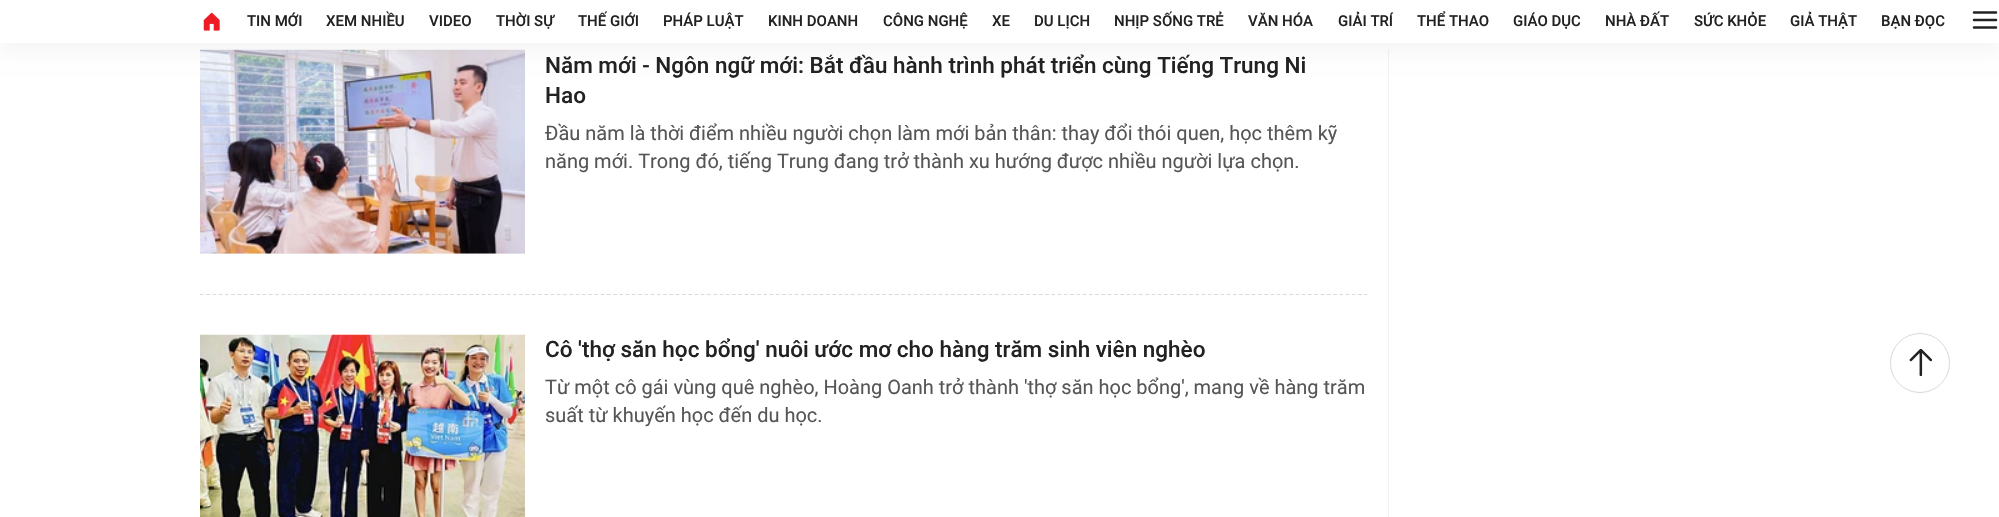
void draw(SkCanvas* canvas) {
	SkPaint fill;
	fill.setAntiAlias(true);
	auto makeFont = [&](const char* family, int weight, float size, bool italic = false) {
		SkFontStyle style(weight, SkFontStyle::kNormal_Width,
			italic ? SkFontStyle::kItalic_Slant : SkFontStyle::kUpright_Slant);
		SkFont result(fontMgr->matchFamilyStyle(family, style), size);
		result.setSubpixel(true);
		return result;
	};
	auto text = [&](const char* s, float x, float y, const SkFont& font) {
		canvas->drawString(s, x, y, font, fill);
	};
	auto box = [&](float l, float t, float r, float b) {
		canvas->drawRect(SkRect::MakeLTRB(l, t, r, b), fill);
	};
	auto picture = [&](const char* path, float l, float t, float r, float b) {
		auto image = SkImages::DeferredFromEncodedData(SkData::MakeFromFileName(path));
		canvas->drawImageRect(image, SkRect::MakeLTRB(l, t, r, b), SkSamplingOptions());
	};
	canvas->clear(0xFFFFFFFF);
	fill.setColor(0xFFF2F2F2);
	box(1388, 50, 1389, 517);
	fill.setColor(0xFFF1F1F1);
	box(200, 253, 525, 254);
	picture("image1.png", 200, 49, 525, 254);
	fill.setColor(0x0D000000);
	fill.setMaskFilter(SkMaskFilter::MakeBlur(kNormal_SkBlurStyle, 12.5f));
	canvas->drawRect(SkRect::MakeLTRB(0, 5, 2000, 48), fill);
	fill.setMaskFilter(nullptr);
	fill.setColor(0xFFFFFFFF);
	box(0, 0, 1999, 43);
	picture("image0.png", 203, 12, 220, 31);
	fill.setStyle(SkPaint::kStroke_Style);
	fill.setStrokeWidth(2.5f);
	fill.setStrokeCap(SkPaint::kRound_Cap);
	fill.setStrokeJoin(SkPaint::kRound_Join);
	fill.setColor(0xFF222222);
	canvas->drawPath(SkPathBuilder().moveTo(1974, 20).lineTo(1996, 20).moveTo(1974, 12.5f).lineTo(1996, 12.5f).moveTo(1974, 27.5f).lineTo(1996, 27.5f).detach(), fill);
	fill.setStrokeWidth(1.2f);
	fill.setStrokeCap(SkPaint::kButt_Cap);
	fill.setStrokeJoin(SkPaint::kMiter_Join);
	fill.setColor(0xFFD9D9D9);
	fill.setPathEffect(SkDashPathEffect::Make({{3.75f, 2.51f}}, 0));
	canvas->drawPath(SkPathBuilder().moveTo(200, 294.5f).lineTo(1367.5f, 294.5f).detach(), fill);
	fill.setPathEffect(nullptr);
	picture("image2.png", 200, 334, 525, 517);
	fill.setStrokeWidth(1);
	canvas->drawCircle(1920, 363, 29.5f, fill);
	picture("image3.png", 1909, 349, 1932, 376);
	auto font1 = makeFont("Roboto", 500, 15);
	fill.setStyle(SkPaint::kFill_Style);
	fill.setColor(0xFF222222);
	text("TIN MỚI", 247, 26, font1);
	text("XEM NHIỀU", 326, 26, font1);
	text("VIDEO", 429, 26, font1);
	text("THỜI SỰ", 496, 26, font1);
	text("THẾ GIỚI", 578, 26, font1);
	text("PHÁP LUẬT", 663, 26, font1);
	text("KINH DOANH", 768, 26, font1);
	text("CÔNG NGHỆ", 883, 26, font1);
	text("XE", 992, 26, font1);
	text("DU LỊCH", 1034, 26, font1);
	text("NHỊP SỐNG TRẺ", 1114, 26, font1);
	text("VĂN HÓA", 1248, 26, font1);
	text("GIẢI TRÍ", 1338, 26, font1);
	text("THỂ THAO", 1417, 26, font1);
	text("GIÁO DỤC", 1513, 26, font1);
	text("NHÀ ĐẤT", 1605, 26, font1);
	text("SỨC KHỎE", 1694, 26, font1);
	text("GIẢ THẬT", 1790, 26, font1);
	text("BẠN ĐỌC", 1881, 26, font1);
	auto font2 = makeFont("Roboto", 500, 22.5f);
	text("Năm mới - Ngôn ngữ mới: Bắt đầu hành trình phát triển cùng Tiếng Trung Ni", 545, 73, font2);
	text("Hao", 545, 103, font2);
	auto font3 = makeFont("Roboto", 400, 20);
	fill.setColor(0xFF565656);
	text("Đầu năm là thời điểm nhiều người chọn làm mới bản thân: thay đổi thói quen, học thêm kỹ", 545, 140, font3);
	text("năng mới. Trong đó, tiếng Trung đang trở thành xu hướng được nhiều người lựa chọn.", 545, 168, font3);
	fill.setColor(0xFF222222);
	text("Cô 'thợ săn học bổng' nuôi ước mơ cho hàng trăm sinh viên nghèo", 545, 357, font2);
	fill.setColor(0xFF565656);
	text("Từ một cô gái vùng quê nghèo, Hoàng Oanh trở thành 'thợ săn học bổng', mang về hàng trăm", 545, 394, font3);
	text("suất từ khuyến học đến du học.", 545, 422, font3);
}
